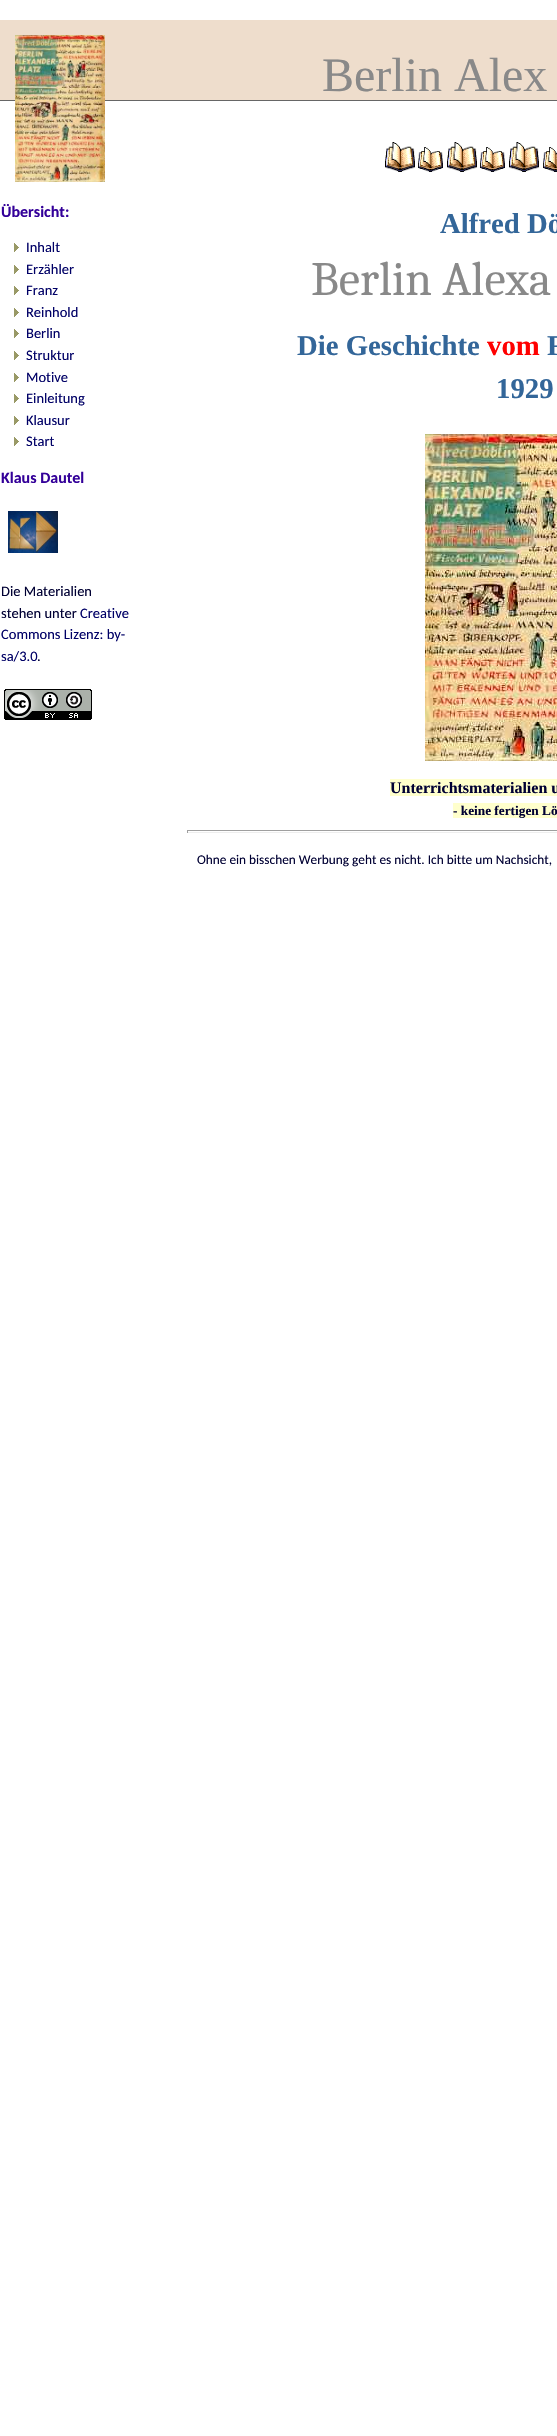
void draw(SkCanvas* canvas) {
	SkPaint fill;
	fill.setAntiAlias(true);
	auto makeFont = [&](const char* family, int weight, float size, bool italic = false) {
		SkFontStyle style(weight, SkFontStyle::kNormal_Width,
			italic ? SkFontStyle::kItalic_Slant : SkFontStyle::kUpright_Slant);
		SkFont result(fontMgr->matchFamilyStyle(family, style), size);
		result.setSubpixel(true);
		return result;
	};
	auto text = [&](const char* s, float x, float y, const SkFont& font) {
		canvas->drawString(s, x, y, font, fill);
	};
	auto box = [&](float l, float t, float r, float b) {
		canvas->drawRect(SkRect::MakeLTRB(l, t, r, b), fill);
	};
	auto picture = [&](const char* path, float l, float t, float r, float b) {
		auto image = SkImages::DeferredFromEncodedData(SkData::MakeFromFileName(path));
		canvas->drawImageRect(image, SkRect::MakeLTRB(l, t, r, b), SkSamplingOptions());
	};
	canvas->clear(0xFFFFFFFF);
	fill.setColor(0xFFEEDDCC);
	box(0, 20, 557, 100);
	fill.setColor(0xFF666666);
	box(0, 100, 557, 101);
	picture("image0.png", 15, 35, 105, 182);
	picture("image1.png", 14, 243, 19, 252);
	picture("image1.png", 14, 265, 19, 274);
	picture("image1.png", 14, 286, 19, 295);
	picture("image1.png", 14, 308, 19, 317);
	picture("image1.png", 14, 329, 19, 338);
	picture("image1.png", 14, 351, 19, 360);
	picture("image1.png", 14, 373, 19, 382);
	picture("image1.png", 14, 394, 19, 403);
	picture("image1.png", 14, 416, 19, 425);
	picture("image1.png", 14, 437, 19, 446);
	picture("image2.png", 8, 511, 58, 553);
	picture("image3.png", 4, 689, 92, 720);
	picture("image4.png", 385, 142, 415, 172);
	picture("image5.png", 418, 147, 443, 172);
	picture("image6.png", 447, 142, 477, 172);
	picture("image5.png", 480, 147, 505, 172);
	picture("image4.png", 509, 142, 539, 172);
	picture("image7.png", 543, 147, 557, 172);
	picture("image8.png", 425, 434, 557, 761);
	fill.setColor(0xFFFFFFCC);
	box(390, 779, 557, 796);
	box(453, 803, 557, 818);
	fill.setColor(0xFF9F9F9F);
	box(187, 830, 557, 831);
	fill.setColor(0xFFEEEEEE);
	box(187, 832, 557, 833);
	fill.setColor(0xFF9F9F9F);
	box(187, 830, 188, 833);
	auto font1 = makeFont("Liberation Serif", 400, 48);
	fill.setColor(0xFF898989);
	text("Berlin Alex", 322, 91, font1);
	auto font2 = makeFont("Carlito", 700, 16);
	fill.setColor(0xFF330099);
	text("Übersicht:", 1, 217, font2);
	auto font3 = makeFont("Carlito", 400, 14.5f);
	fill.setColor(0xFF000066);
	text("Inhalt", 26, 252, font3);
	text("Erzähler", 26, 274, font3);
	text("Franz", 26, 295, font3);
	text("Reinhold", 26, 317, font3);
	text("Berlin", 26, 338, font3);
	text("Struktur", 26, 360, font3);
	text("Motive", 26, 382, font3);
	text("Einleitung", 26, 403, font3);
	text("Klausur", 26, 425, font3);
	text("Start", 26, 446, font3);
	fill.setColor(0xFF330099);
	text("Klaus Dautel", 1, 483, font2);
	fill.setColor(0xFF000033);
	text("Die Materialien", 1, 596, font3);
	text("stehen unter", 1, 618, font3);
	fill.setColor(0xFF000066);
	text("Creative", 80, 618, font3);
	text("Commons Lizenz: by-", 1, 639, font3);
	text("sa/3.0", 1, 661, font3);
	fill.setColor(0xFF000033);
	text(".", 37, 661, font3);
	auto font4 = makeFont("Liberation Serif", 700, 28.75f);
	fill.setColor(0xFF336699);
	text("Alfred Dö", 440, 233, font4);
	auto font5 = makeFont("Caladea", 400, 48);
	fill.setColor(0xFF898989);
	text("Berlin Alexa", 311, 295, font5);
	fill.setColor(0xFF336699);
	text("Die Geschichte", 297, 355, font4);
	fill.setColor(0xFFFF0000);
	text("vom", 487, 355, font4);
	fill.setColor(0xFF336699);
	text("F", 547, 355, font4);
	text("1929", 496, 398, font4);
	auto font6 = makeFont("Liberation Serif", 700, 16);
	fill.setColor(0xFF000033);
	text("Unterrichtsmaterialien u", 390, 793, font6);
	auto font7 = makeFont("Liberation Serif", 700, 13.3f);
	text("- keine fertigen Lö", 453, 815, font7);
	auto font8 = makeFont("Carlito", 400, 13.3f);
	text("Ohne ein bisschen Werbung geht es nicht. Ich bitte um Nachsicht,", 197, 864, font8);
}
